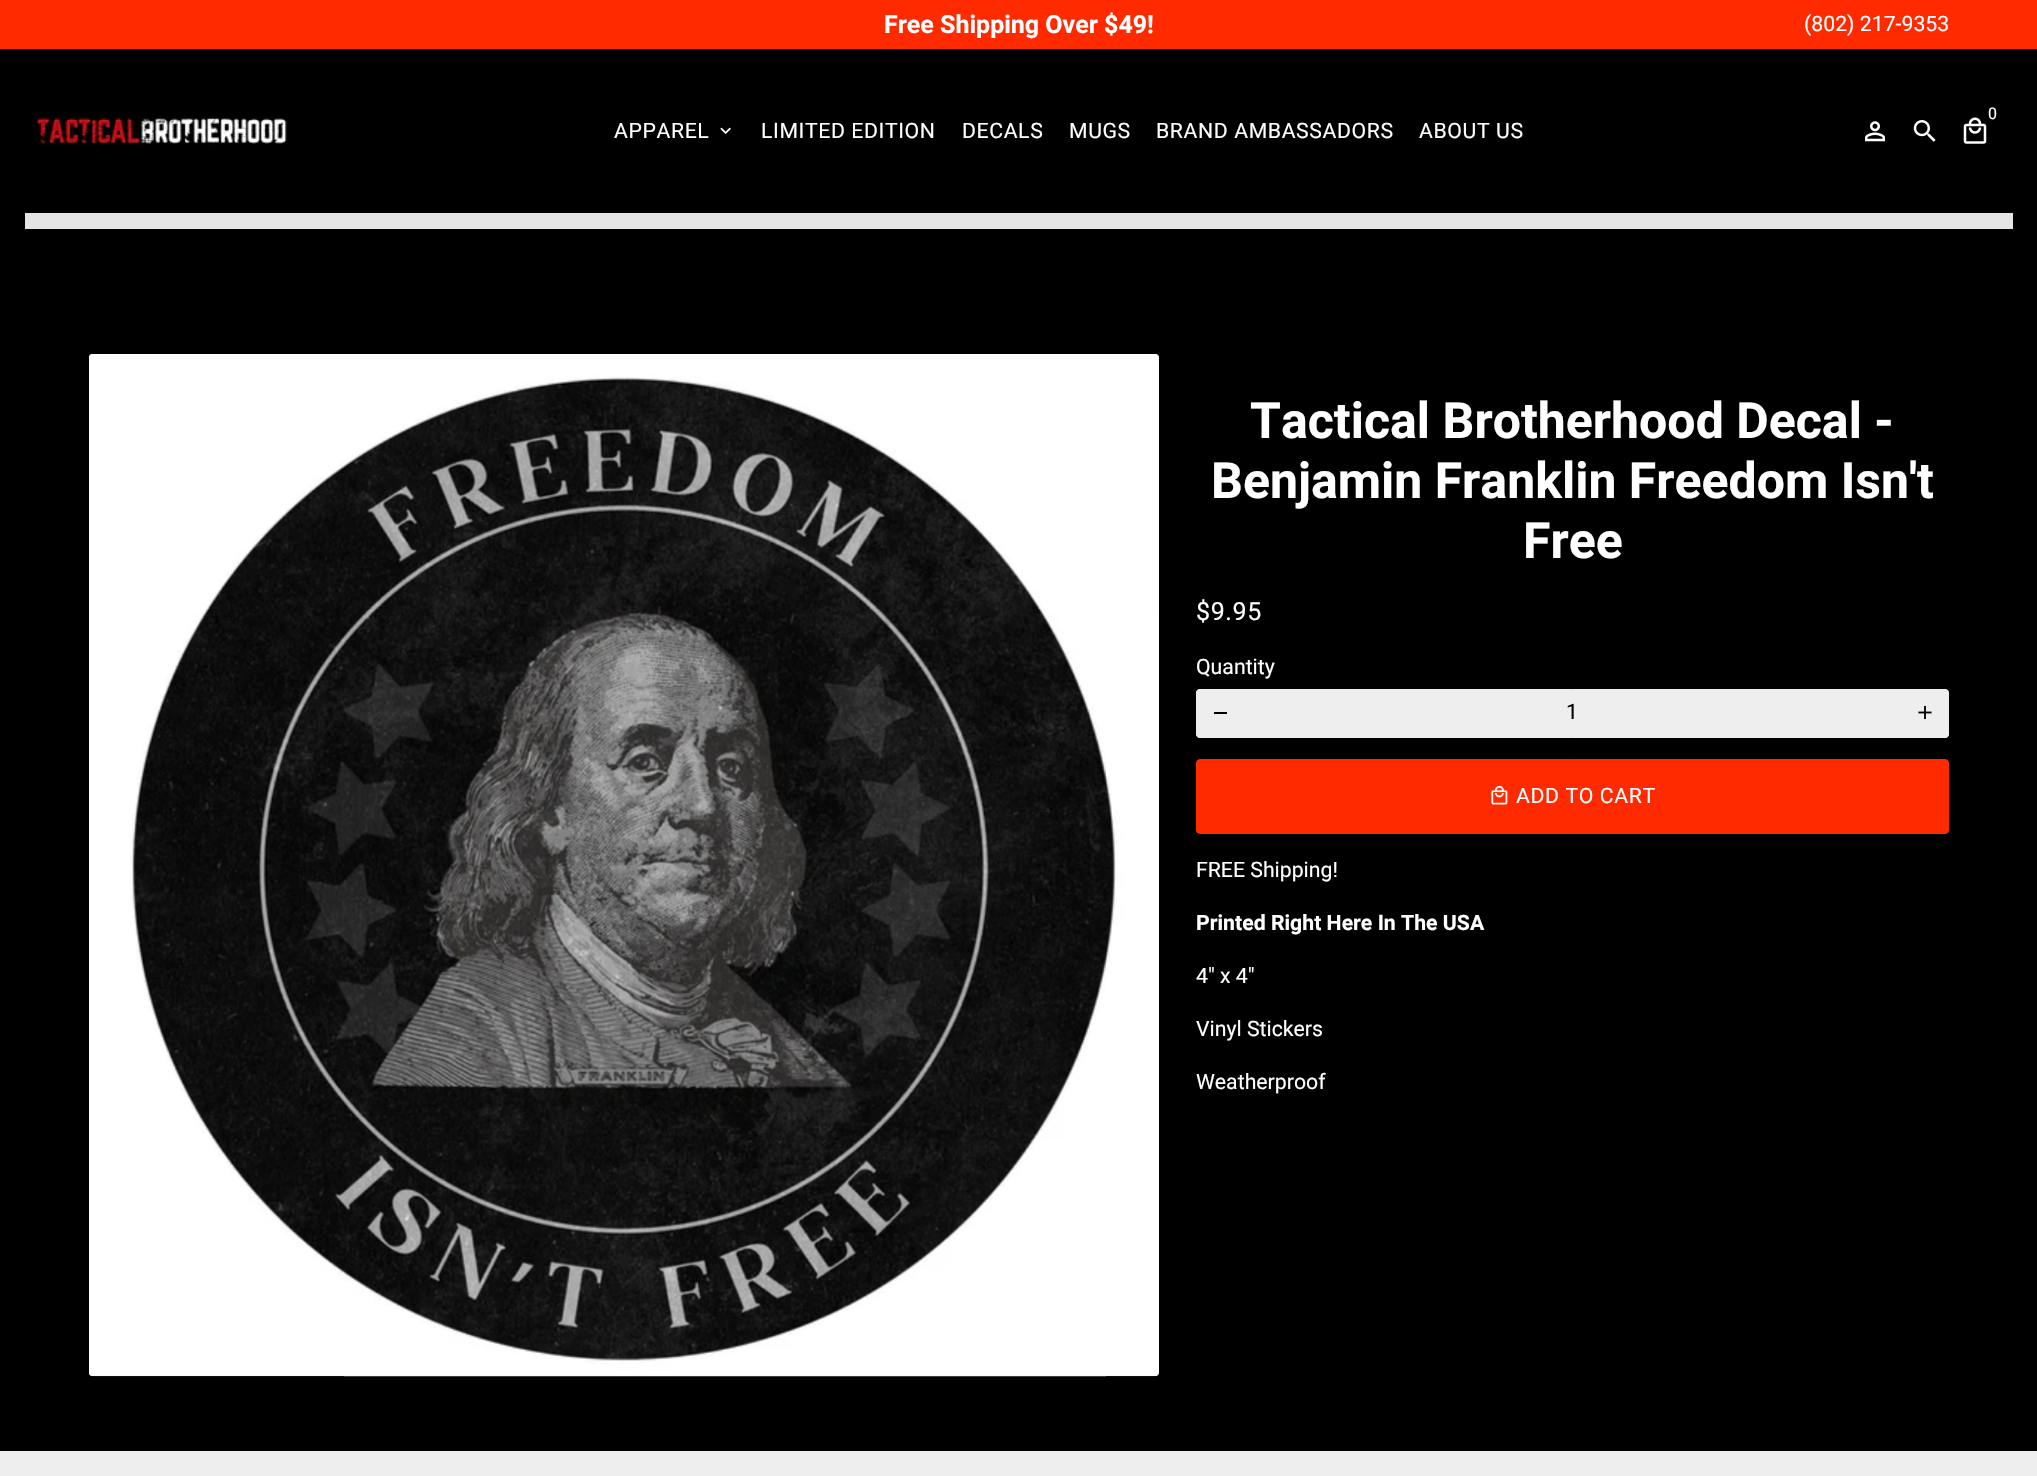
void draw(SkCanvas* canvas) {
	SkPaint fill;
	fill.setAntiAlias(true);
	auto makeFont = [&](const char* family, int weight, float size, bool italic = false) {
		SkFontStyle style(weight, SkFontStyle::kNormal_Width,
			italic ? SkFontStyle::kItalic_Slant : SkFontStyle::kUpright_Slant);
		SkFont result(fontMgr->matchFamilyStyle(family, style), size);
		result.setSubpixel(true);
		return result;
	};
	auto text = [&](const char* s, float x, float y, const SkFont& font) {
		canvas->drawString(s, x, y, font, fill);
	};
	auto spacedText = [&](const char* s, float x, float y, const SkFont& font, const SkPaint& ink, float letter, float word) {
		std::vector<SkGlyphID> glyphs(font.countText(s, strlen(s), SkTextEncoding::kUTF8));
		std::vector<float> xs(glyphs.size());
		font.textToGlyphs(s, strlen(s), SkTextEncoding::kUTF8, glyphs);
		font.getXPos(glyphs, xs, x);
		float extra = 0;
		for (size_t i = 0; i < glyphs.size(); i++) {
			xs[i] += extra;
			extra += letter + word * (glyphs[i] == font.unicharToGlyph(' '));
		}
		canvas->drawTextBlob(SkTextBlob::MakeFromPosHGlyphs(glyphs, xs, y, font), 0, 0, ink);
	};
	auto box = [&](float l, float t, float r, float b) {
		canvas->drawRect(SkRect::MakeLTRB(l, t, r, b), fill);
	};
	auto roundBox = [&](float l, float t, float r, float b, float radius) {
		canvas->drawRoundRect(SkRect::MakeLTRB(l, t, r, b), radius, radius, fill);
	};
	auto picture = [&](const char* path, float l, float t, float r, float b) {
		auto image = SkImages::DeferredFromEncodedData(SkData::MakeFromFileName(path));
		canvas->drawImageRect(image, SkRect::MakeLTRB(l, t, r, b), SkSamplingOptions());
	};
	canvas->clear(0xFF000000);
	fill.setColor(0xFFFF2A00);
	box(0, 0, 2037, 49);
	picture("image0.png", 1963, 117, 1987, 144);
	picture("image1.png", 1865, 121, 1885, 142);
	picture("image2.png", 1913, 120, 1936, 142);
	picture("image3.png", 37, 115, 287, 145);
	picture("image4.png", 720, 127, 731, 135);
	fill.setColor(0xFFE5E5E5);
	box(25, 213, 2013, 229);
	roundBox(89, 354, 1159, 1376, 4);
	picture("image5.png", 89, 354, 1159, 1377);
	fill.setColor(0xFFEEEEEE);
	canvas->drawRoundRect(SkRect::MakeLTRB(1196.5f, 689.5f, 1948.5f, 737.5f), 3.5f, 3.5f, fill);
	fill.setStyle(SkPaint::kStroke_Style);
	fill.setStrokeWidth(1);
	canvas->drawRoundRect(SkRect::MakeLTRB(1196.5f, 689.5f, 1948.5f, 737.5f), 3.5f, 3.5f, fill);
	fill.setStyle(SkPaint::kFill_Style);
	canvas->drawRoundRect(SkRect::MakeLTRB(1196.5f, 689.5f, 1244.5f, 737.5f), 3.5f, 3.5f, fill);
	fill.setStyle(SkPaint::kStroke_Style);
	canvas->drawRoundRect(SkRect::MakeLTRB(1196.5f, 689.5f, 1244.5f, 737.5f), 3.5f, 3.5f, fill);
	fill.setStyle(SkPaint::kFill_Style);
	fill.setColor(0xFF000000);
	box(1214, 712, 1227, 714);
	fill.setColor(0xFFEEEEEE);
	canvas->drawRoundRect(SkRect::MakeLTRB(1900.5f, 689.5f, 1948.5f, 737.5f), 3.5f, 3.5f, fill);
	fill.setStyle(SkPaint::kStroke_Style);
	canvas->drawRoundRect(SkRect::MakeLTRB(1900.5f, 689.5f, 1948.5f, 737.5f), 3.5f, 3.5f, fill);
	picture("image6.png", 1918, 705, 1932, 720);
	fill.setStyle(SkPaint::kFill_Style);
	fill.setColor(0xFFFF2A00);
	canvas->drawRoundRect(SkRect::MakeLTRB(1196.5f, 759.5f, 1948.5f, 833.5f), 3.5f, 3.5f, fill);
	fill.setStyle(SkPaint::kStroke_Style);
	canvas->drawRoundRect(SkRect::MakeLTRB(1196.5f, 759.5f, 1948.5f, 833.5f), 3.5f, 3.5f, fill);
	picture("image7.png", 1491, 785, 1508, 805);
	fill.setStyle(SkPaint::kFill_Style);
	fill.setColor(0xFFEEEEEE);
	box(0, 1451, 2037, 1476);
	auto font1 = makeFont("Roboto", 700, 25);
	fill.setColor(0xFFFFFFFF);
	text("Free Shipping Over $49!", 884, 33, font1);
	auto font2 = makeFont("Roboto", 400, 21.25f);
	text("(802) 217-9353", 1804, 31, font2);
	auto font3 = makeFont("Roboto", 400, 16);
	text("0", 1988, 119, font3);
	spacedText("APPAREL", 614, 138, font2, fill, 0.6f, 0);
	spacedText("LIMITED EDITION", 761, 138, font2, fill, 0.6f, 0);
	spacedText("DECALS", 962, 138, font2, fill, 0.6f, 0);
	spacedText("MUGS", 1069, 138, font2, fill, 0.6f, 0);
	spacedText("BRAND AMBASSADORS", 1156, 138, font2, fill, 0.6f, 0);
	spacedText("ABOUT US", 1419, 138, font2, fill, 0.6f, 0);
	auto font4 = makeFont("Roboto", 700, 50);
	text("Tactical Brotherhood Decal -", 1250, 438, font4);
	text("Benjamin Franklin Freedom Isn't", 1211, 498, font4);
	text("Free", 1523, 558, font4);
	auto font5 = makeFont("Roboto", 400, 25);
	spacedText("$9.95", 1196, 620, font5, fill, 0.6f, 0);
	text("Quantity", 1196, 674, font2);
	fill.setColor(0xFF000000);
	text("1", 1566, 719, font2);
	fill.setColor(0xFFFFFFFF);
	spacedText("ADD TO CART", 1516, 803, font2, fill, 0.6f, 0);
	text("FREE Shipping!", 1196, 877, font2);
	auto font6 = makeFont("Roboto", 700, 21.25f);
	text("Printed Right Here In The USA", 1196, 930, font6);
	text("4\" x 4\"", 1196, 983, font2);
	text("Vinyl Stickers", 1196, 1036, font2);
	text("Weatherproof", 1196, 1089, font2);
}
